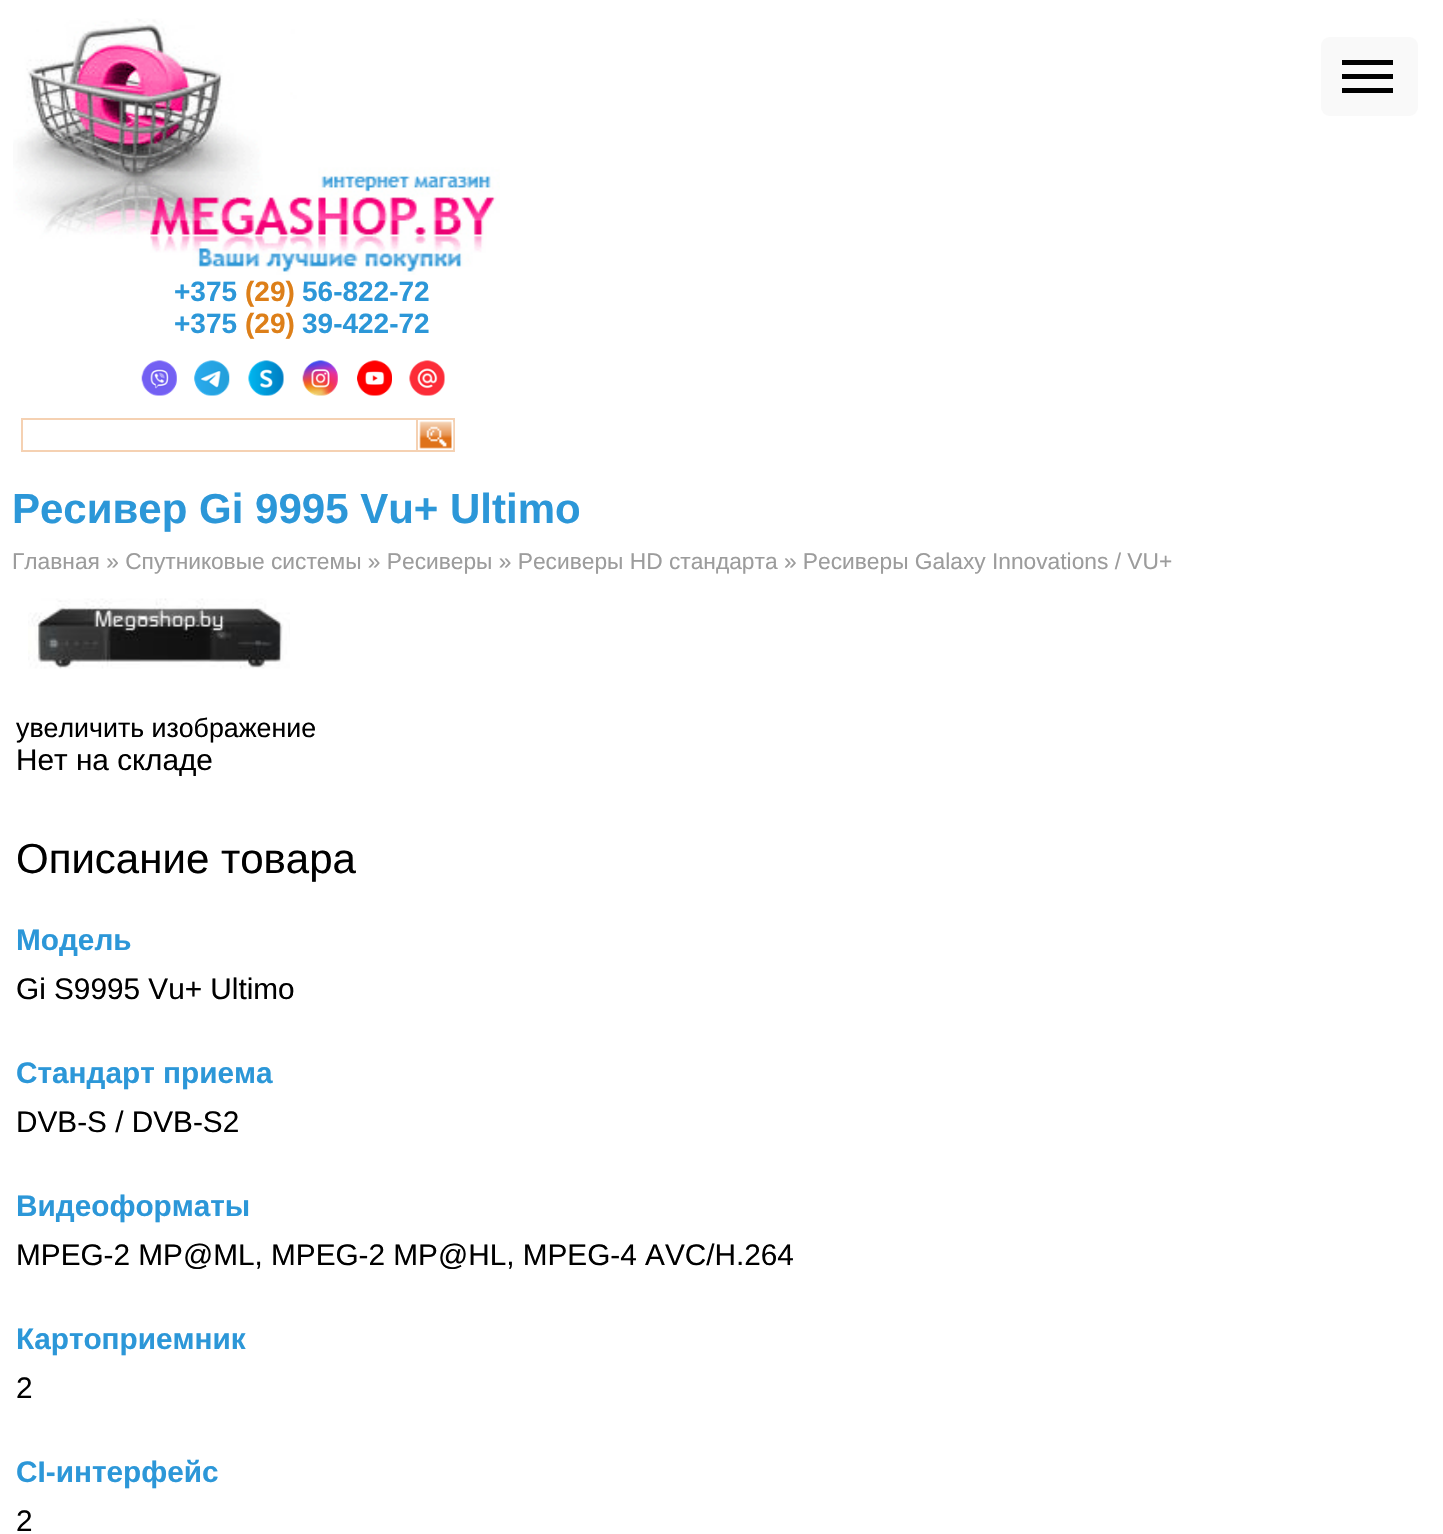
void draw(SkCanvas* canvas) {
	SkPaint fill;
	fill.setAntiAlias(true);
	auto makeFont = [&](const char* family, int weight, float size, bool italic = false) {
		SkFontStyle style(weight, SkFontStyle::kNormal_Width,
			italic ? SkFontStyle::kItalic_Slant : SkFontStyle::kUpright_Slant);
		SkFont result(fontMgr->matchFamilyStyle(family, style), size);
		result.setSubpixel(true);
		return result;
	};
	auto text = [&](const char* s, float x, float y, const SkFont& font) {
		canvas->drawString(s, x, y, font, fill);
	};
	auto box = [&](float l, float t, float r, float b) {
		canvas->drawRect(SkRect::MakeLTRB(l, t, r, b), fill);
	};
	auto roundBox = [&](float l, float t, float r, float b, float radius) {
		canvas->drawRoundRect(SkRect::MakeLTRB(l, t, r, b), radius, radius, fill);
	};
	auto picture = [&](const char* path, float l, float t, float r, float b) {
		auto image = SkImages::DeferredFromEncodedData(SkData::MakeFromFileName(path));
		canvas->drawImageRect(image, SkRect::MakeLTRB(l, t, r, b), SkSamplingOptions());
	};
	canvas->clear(0xFFFFFFFF);
	fill.setColor(0xFFF9F9F9);
	roundBox(1321, 37, 1418, 116, 9);
	fill.setColor(0xFF000000);
	box(1342, 74, 1393, 79);
	box(1342, 60, 1393, 65);
	box(1342, 88, 1393, 93);
	picture("image0.png", 13, 18, 500, 275);
	picture("image1.png", 141, 360, 177, 396);
	picture("image2.png", 194, 360, 230, 396);
	picture("image3.png", 248, 360, 284, 396);
	picture("image4.png", 302, 360, 338, 396);
	picture("image5.png", 357, 360, 392, 396);
	picture("image6.png", 409, 360, 445, 396);
	fill.setStyle(SkPaint::kStroke_Style);
	fill.setStrokeWidth(2);
	fill.setColor(0xFFF5D1B2);
	canvas->drawRect(SkRect::MakeLTRB(22, 419, 417, 451), fill);
	fill.setStyle(SkPaint::kFill_Style);
	box(418, 418, 455, 420);
	box(453, 418, 455, 452);
	box(418, 450, 455, 452);
	picture("image7.png", 419, 421, 454, 449);
	picture("image8.png", 28, 598, 290, 669);
	auto font1 = makeFont("Liberation Sans", 700, 28);
	fill.setColor(0xFF2C97D8);
	text("+375", 174, 301, font1);
	fill.setColor(0xFFDD7F19);
	text("(29)", 245, 301, font1);
	fill.setColor(0xFF2C97D8);
	text("56-822-72", 302, 301, font1);
	text("+375", 174, 333, font1);
	fill.setColor(0xFFDD7F19);
	text("(29)", 245, 333, font1);
	fill.setColor(0xFF2C97D8);
	text("39-422-72", 302, 333, font1);
	auto font2 = makeFont("Liberation Sans", 700, 42);
	text("Ресивер Gi 9995 Vu+ Ultimo", 12, 523, font2);
	auto font3 = makeFont("Liberation Sans", 400, 22.75f);
	fill.setColor(0xFF9C9C9C);
	text("Главная » Спутниковые системы » Ресиверы » Ресиверы HD стандарта » Ресиверы Galaxy Innovations / VU+", 12, 569, font3);
	auto font4 = makeFont("Liberation Sans", 400, 26.75f);
	fill.setColor(0xFF000000);
	text("увеличить изображение", 16, 737, font4);
	auto font5 = makeFont("Liberation Sans", 400, 29.75f);
	text("Нет на складе", 16, 770, font5);
	auto font6 = makeFont("Liberation Sans", 400, 42);
	text("Описание товара", 16, 873, font6);
	auto font7 = makeFont("Liberation Sans", 700, 29.75f);
	fill.setColor(0xFF2C97D8);
	text("Модель", 16, 950, font7);
	fill.setColor(0xFF000000);
	text("Gi S9995 Vu+ Ultimo", 16, 999, font5);
	fill.setColor(0xFF2C97D8);
	text("Стандарт приема", 16, 1083, font7);
	fill.setColor(0xFF000000);
	text("DVB-S / DVB-S2", 16, 1132, font5);
	fill.setColor(0xFF2C97D8);
	text("Видеоформаты", 16, 1216, font7);
	fill.setColor(0xFF000000);
	text("MPEG-2 MP@ML, MPEG-2 MP@HL, MPEG-4 AVC/H.264", 16, 1265, font5);
	fill.setColor(0xFF2C97D8);
	text("Картоприемник", 16, 1349, font7);
	fill.setColor(0xFF000000);
	text("2", 16, 1398, font5);
	fill.setColor(0xFF2C97D8);
	text("CI-интерфейс", 16, 1482, font7);
	fill.setColor(0xFF000000);
	text("2", 16, 1531, font5);
}
